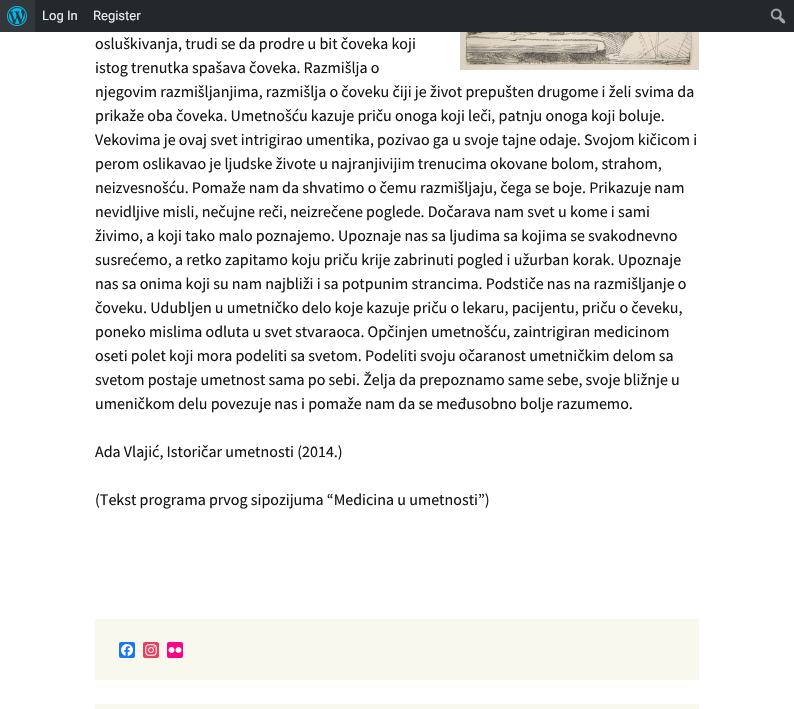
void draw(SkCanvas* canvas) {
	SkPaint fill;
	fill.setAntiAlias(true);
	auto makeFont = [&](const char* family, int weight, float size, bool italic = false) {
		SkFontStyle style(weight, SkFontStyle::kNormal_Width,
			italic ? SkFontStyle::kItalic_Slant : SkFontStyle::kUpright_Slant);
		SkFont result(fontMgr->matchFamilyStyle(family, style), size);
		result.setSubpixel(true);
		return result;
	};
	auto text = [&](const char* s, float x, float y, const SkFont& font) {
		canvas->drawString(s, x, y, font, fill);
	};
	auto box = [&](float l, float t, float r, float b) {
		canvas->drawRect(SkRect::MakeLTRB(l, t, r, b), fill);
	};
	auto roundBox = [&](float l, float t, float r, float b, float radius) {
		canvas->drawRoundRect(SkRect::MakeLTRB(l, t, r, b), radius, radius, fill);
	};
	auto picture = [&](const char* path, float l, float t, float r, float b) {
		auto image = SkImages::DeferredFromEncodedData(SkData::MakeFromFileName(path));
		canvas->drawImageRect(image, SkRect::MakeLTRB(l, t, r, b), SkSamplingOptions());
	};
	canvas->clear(0xFFFFFFFF);
	fill.setColor(0xFF23282D);
	box(35, 0, 794, 32);
	fill.setColor(0xFF32373C);
	box(0, 0, 35, 32);
	picture("image0.png", 7, 6, 27, 26);
	picture("image1.png", 770, 8, 786, 24);
	picture("image2.png", 460, 32, 699, 70);
	fill.setColor(0xFFF9F8EE);
	box(95, 619, 699, 680);
	fill.setColor(0xFF1877F2);
	roundBox(119, 642, 135, 658, 2);
	picture("image3.png", 121, 644, 133, 656);
	fill.setColor(0xFFE4405F);
	roundBox(143, 642, 159, 658, 2);
	picture("image4.png", 145, 644, 157, 656);
	fill.setColor(0xFFFF0084);
	roundBox(167, 642, 183, 658, 2);
	picture("image5.png", 168, 647, 182, 653);
	fill.setColor(0xFFF9F8EE);
	box(95, 704, 699, 709);
	auto font1 = makeFont("Roboto", 400, 13);
	fill.setColor(0xFFEEEEEE);
	text("Log In", 42, 20, font1);
	text("Register", 93, 20, font1);
	auto font2 = makeFont("Source Sans Pro", 400, 16);
	fill.setColor(0xFF141412);
	text("osluškivanja, trudi se da prodre u bit čoveka koji", 95, 49, font2);
	text("istog trenutka spašava čoveka. Razmišlja o", 95, 73, font2);
	text("njegovim razmišljanjima, razmišlja o čoveku čiji je život prepušten drugome i želi svima da", 95, 97, font2);
	text("prikaže oba čoveka. Umetnošću kazuje priču onoga koji leči, patnju onoga koji boluje.", 95, 121, font2);
	text("Vekovima je ovaj svet intrigirao umentika, pozivao ga u svoje tajne odaje. Svojom kičicom i", 95, 145, font2);
	text("perom oslikavao je ljudske živote u najranjivijim trenucima okovane bolom, strahom,", 95, 169, font2);
	text("neizvesnošću. Pomaže nam da shvatimo o čemu razmišljaju, čega se boje. Prikazuje nam", 95, 193, font2);
	text("nevidljive misli, nečujne reči, neizrečene poglede. Dočarava nam svet u kome i sami", 95, 217, font2);
	text("živimo, a koji tako malo poznajemo. Upoznaje nas sa ljudima sa kojima se svakodnevno", 95, 241, font2);
	text("susrećemo, a retko zapitamo koju priču krije zabrinuti pogled i užurban korak. Upoznaje", 95, 265, font2);
	text("nas sa onima koji su nam najbliži i sa potpunim strancima. Podstiče nas na razmišljanje o", 95, 289, font2);
	text("čoveku. Udubljen u umetničko delo koje kazuje priču o lekaru, pacijentu, priču o čeveku,", 95, 313, font2);
	text("poneko mislima odluta u svet stvaraoca. Opčinjen umetnošću, zaintrigiran medicinom", 95, 337, font2);
	text("oseti polet koji mora podeliti sa svetom. Podeliti svoju očaranost umetničkim delom sa", 95, 361, font2);
	text("svetom postaje umetnost sama po sebi. Želja da prepoznamo same sebe, svoje bližnje u", 95, 385, font2);
	text("umeničkom delu povezuje nas i pomaže nam da se međusobno bolje razumemo.", 95, 409, font2);
	text("Ada Vlajić, Istoričar umetnosti (2014.)", 95, 457, font2);
	text("(Tekst programa prvog sipozijuma “Medicina u umetnosti”)", 95, 505, font2);
}
